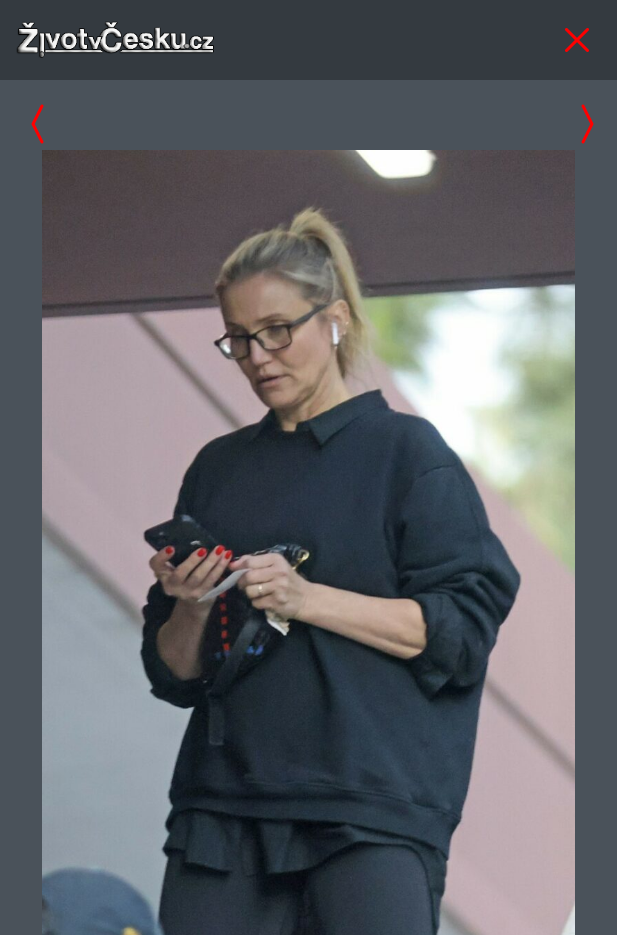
void draw(SkCanvas* canvas) {
	SkPaint fill;
	fill.setAntiAlias(true);
	auto box = [&](float l, float t, float r, float b) {
		canvas->drawRect(SkRect::MakeLTRB(l, t, r, b), fill);
	};
	auto picture = [&](const char* path, float l, float t, float r, float b) {
		auto image = SkImages::DeferredFromEncodedData(SkData::MakeFromFileName(path));
		canvas->drawImageRect(image, SkRect::MakeLTRB(l, t, r, b), SkSamplingOptions());
	};
	canvas->clear(0xFF4A525A);
	fill.setColor(0xFF343A40);
	box(0, 0, 617, 80);
	picture("image0.png", 16, 21, 214, 58);
	picture("image1.png", 565, 28, 589, 52);
	picture("image2.png", 31, 104, 44, 144);
	picture("image3.png", 581, 104, 594, 144);
	picture("image4.png", 42, 150, 575, 935);
}
